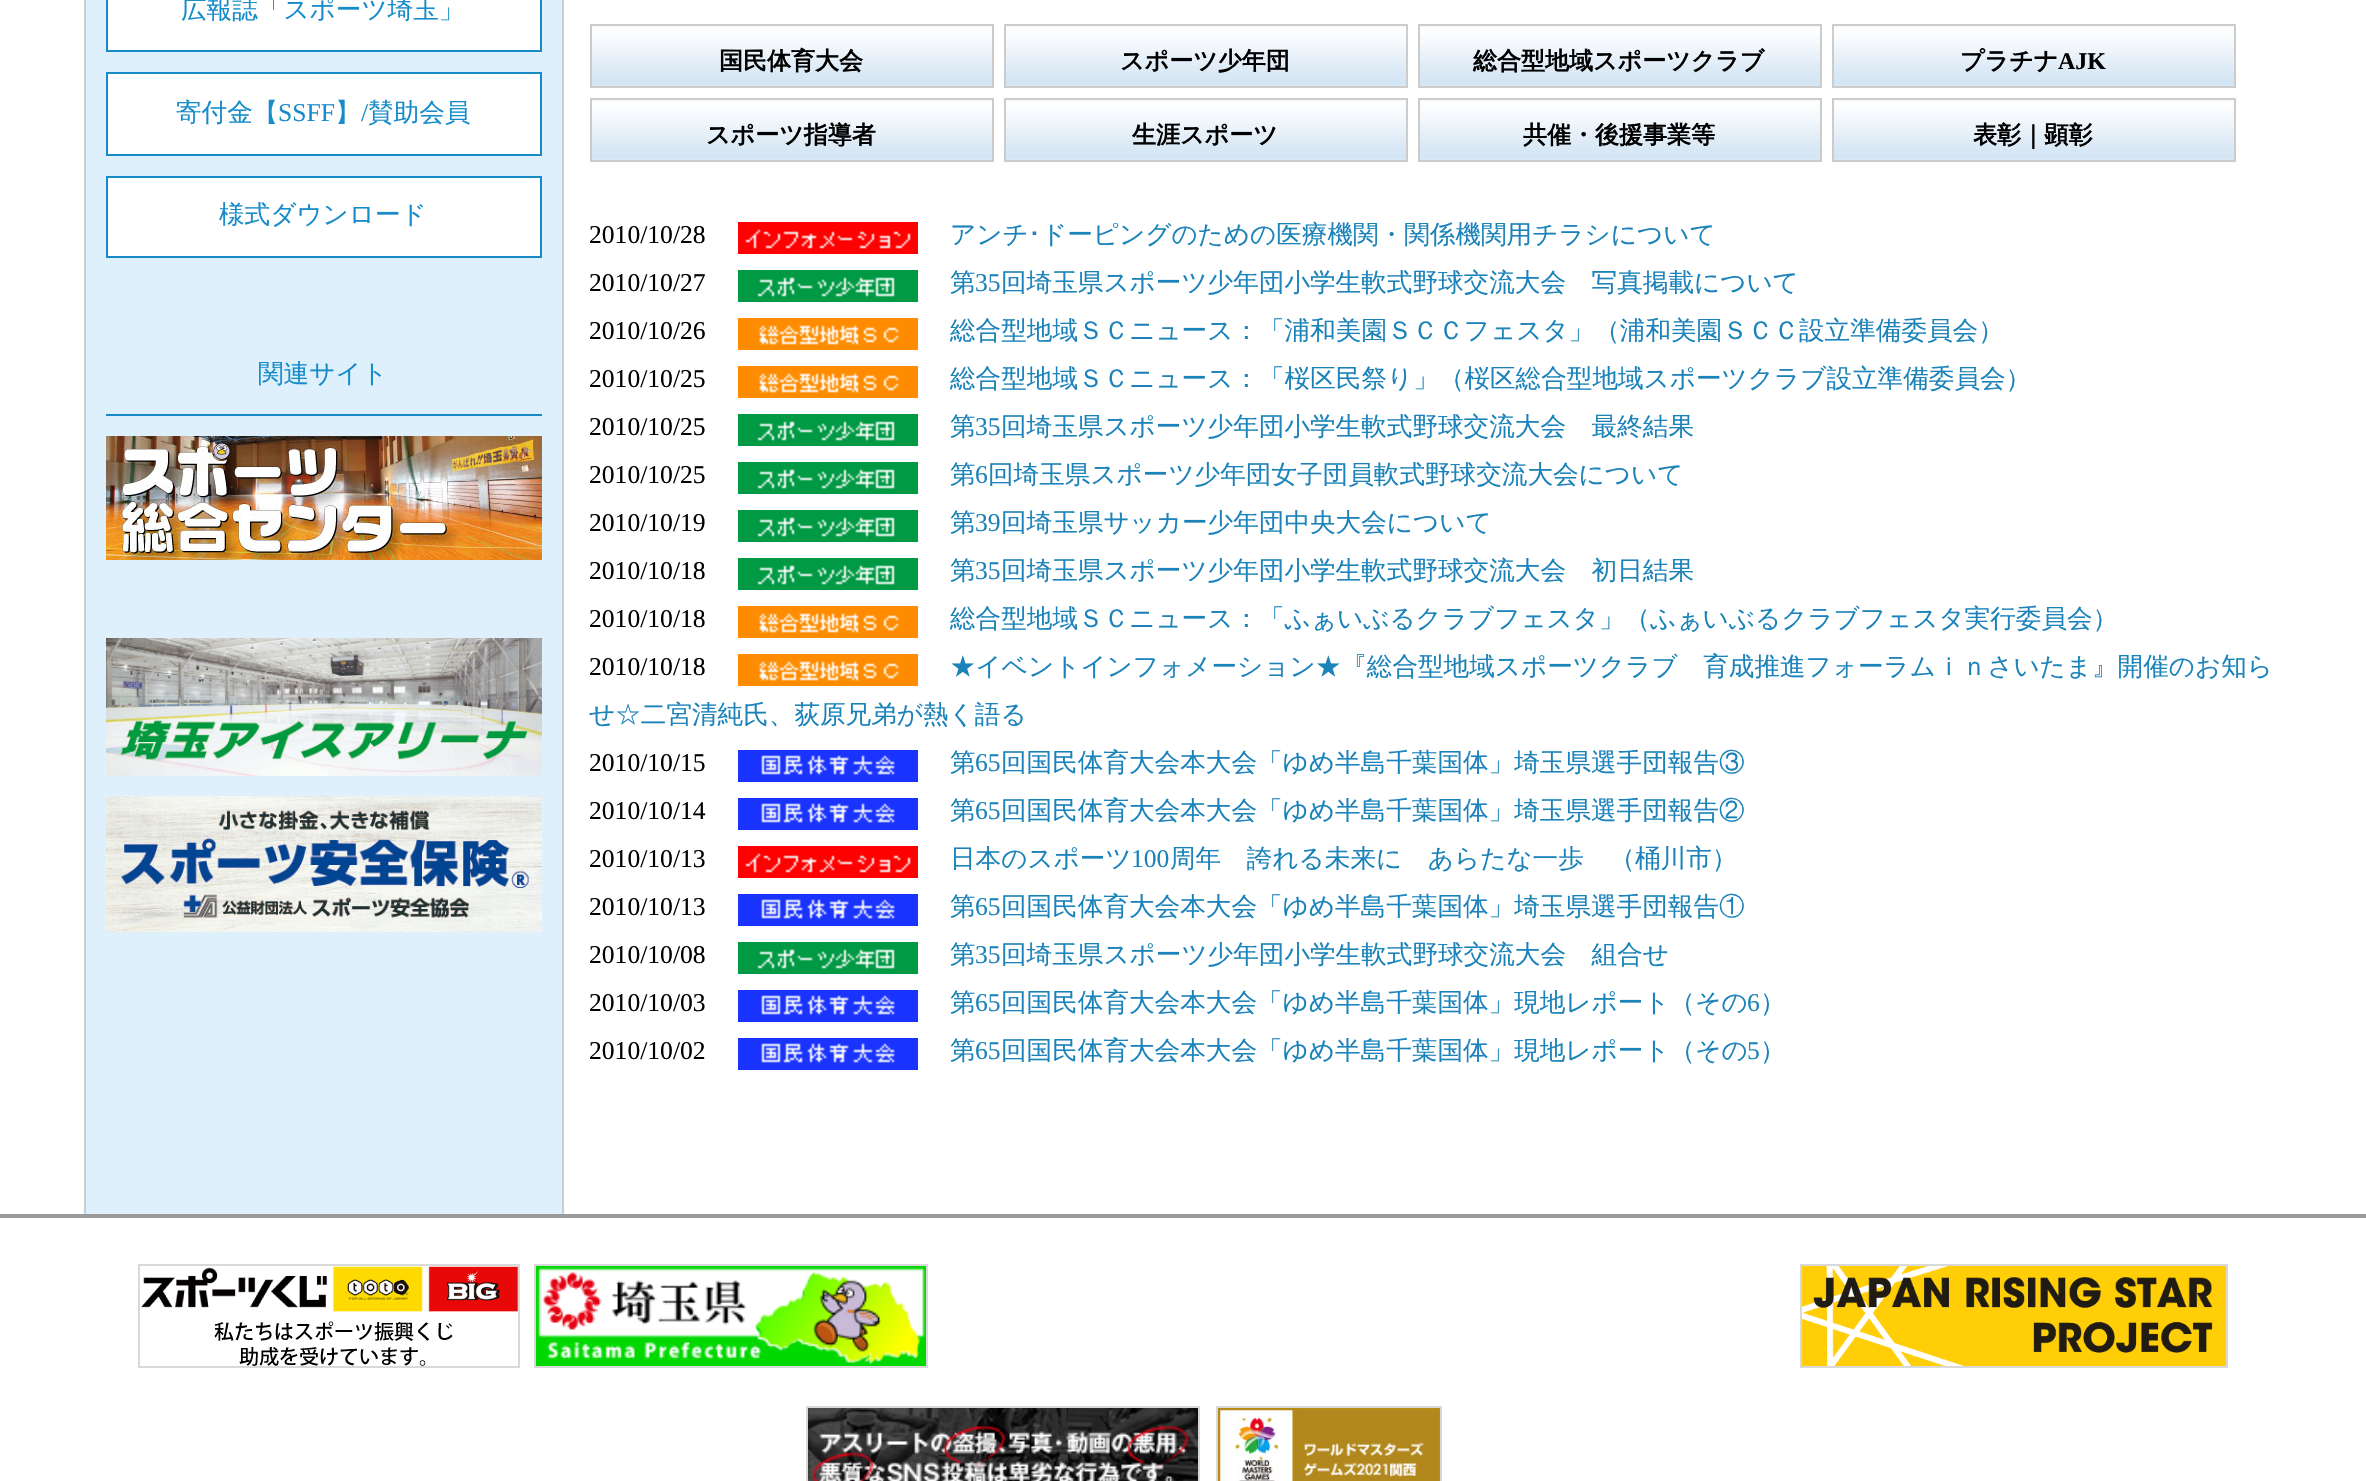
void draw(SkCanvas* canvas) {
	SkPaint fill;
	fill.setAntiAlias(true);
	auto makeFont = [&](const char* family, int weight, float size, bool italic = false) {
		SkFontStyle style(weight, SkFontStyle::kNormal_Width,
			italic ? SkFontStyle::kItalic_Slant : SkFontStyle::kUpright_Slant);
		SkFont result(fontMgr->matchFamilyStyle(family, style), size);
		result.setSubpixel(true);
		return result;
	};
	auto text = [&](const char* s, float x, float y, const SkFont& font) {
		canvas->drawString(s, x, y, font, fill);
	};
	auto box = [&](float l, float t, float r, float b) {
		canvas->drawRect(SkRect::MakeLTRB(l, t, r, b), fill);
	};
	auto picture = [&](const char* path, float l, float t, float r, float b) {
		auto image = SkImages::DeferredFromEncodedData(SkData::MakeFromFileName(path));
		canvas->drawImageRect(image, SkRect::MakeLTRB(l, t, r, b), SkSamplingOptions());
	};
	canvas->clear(0xFFFFFFFF);
	fill.setColor(0xFF9A9A9A);
	box(0, 1214, 2366, 1218);
	fill.setColor(0xFFDEF0FC);
	box(86, 0, 562, 1214);
	fill.setColor(0xFFC4CFD1);
	box(562, 0, 564, 1214);
	box(84, 0, 86, 1214);
	fill.setColor(0xFFFFFFFF);
	canvas->drawRect(SkRect::MakeLTRB(107, -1, 541, 51), fill);
	fill.setStyle(SkPaint::kStroke_Style);
	fill.setStrokeWidth(2);
	fill.setColor(0xFF178CC9);
	canvas->drawRect(SkRect::MakeLTRB(107, -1, 541, 51), fill);
	fill.setStyle(SkPaint::kFill_Style);
	fill.setColor(0xFFFFFFFF);
	canvas->drawRect(SkRect::MakeLTRB(107, 73, 541, 155), fill);
	fill.setStyle(SkPaint::kStroke_Style);
	fill.setColor(0xFF178CC9);
	canvas->drawRect(SkRect::MakeLTRB(107, 73, 541, 155), fill);
	fill.setStyle(SkPaint::kFill_Style);
	fill.setColor(0xFFFFFFFF);
	canvas->drawRect(SkRect::MakeLTRB(107, 177, 541, 257), fill);
	fill.setStyle(SkPaint::kStroke_Style);
	fill.setColor(0xFF178CC9);
	canvas->drawRect(SkRect::MakeLTRB(107, 177, 541, 257), fill);
	fill.setStyle(SkPaint::kFill_Style);
	box(106, 414, 542, 416);
	picture("image0.png", 106, 436, 542, 560);
	picture("image1.png", 106, 638, 542, 776);
	picture("image2.png", 106, 796, 542, 932);
	picture("image3.png", 592, 26, 992, 86);
	fill.setStyle(SkPaint::kStroke_Style);
	fill.setColor(0xFFCCCCCC);
	canvas->drawRect(SkRect::MakeLTRB(591, 25, 993, 87), fill);
	picture("image3.png", 1006, 26, 1406, 86);
	canvas->drawRect(SkRect::MakeLTRB(1005, 25, 1407, 87), fill);
	picture("image3.png", 1420, 26, 1820, 86);
	canvas->drawRect(SkRect::MakeLTRB(1419, 25, 1821, 87), fill);
	picture("image3.png", 1834, 26, 2234, 86);
	canvas->drawRect(SkRect::MakeLTRB(1833, 25, 2235, 87), fill);
	picture("image3.png", 592, 100, 992, 160);
	canvas->drawRect(SkRect::MakeLTRB(591, 99, 993, 161), fill);
	picture("image3.png", 1006, 100, 1406, 160);
	canvas->drawRect(SkRect::MakeLTRB(1005, 99, 1407, 161), fill);
	picture("image3.png", 1420, 100, 1820, 160);
	canvas->drawRect(SkRect::MakeLTRB(1419, 99, 1821, 161), fill);
	picture("image3.png", 1834, 100, 2234, 160);
	canvas->drawRect(SkRect::MakeLTRB(1833, 99, 2235, 161), fill);
	picture("image4.png", 738, 222, 918, 254);
	picture("image5.png", 738, 270, 918, 302);
	picture("image6.png", 738, 318, 918, 350);
	picture("image6.png", 738, 366, 918, 398);
	picture("image5.png", 738, 414, 918, 446);
	picture("image5.png", 738, 462, 918, 494);
	picture("image5.png", 738, 510, 918, 542);
	picture("image5.png", 738, 558, 918, 590);
	picture("image6.png", 738, 606, 918, 638);
	picture("image6.png", 738, 654, 918, 686);
	picture("image7.png", 738, 750, 918, 782);
	picture("image7.png", 738, 798, 918, 830);
	picture("image4.png", 738, 846, 918, 878);
	picture("image7.png", 738, 894, 918, 926);
	picture("image5.png", 738, 942, 918, 974);
	picture("image7.png", 738, 990, 918, 1022);
	picture("image7.png", 738, 1038, 918, 1070);
	fill.setColor(0xFFD9D9D9);
	canvas->drawRect(SkRect::MakeLTRB(139, 1265, 519, 1367), fill);
	canvas->drawRect(SkRect::MakeLTRB(535, 1265, 927, 1367), fill);
	canvas->drawRect(SkRect::MakeLTRB(1801, 1265, 2227, 1367), fill);
	picture("image8.png", 141, 1266, 518, 1366);
	picture("image9.png", 536, 1266, 926, 1366);
	picture("image10.png", 1802, 1266, 2226, 1366);
	canvas->drawRect(SkRect::MakeLTRB(807, 1407, 1199, 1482), fill);
	canvas->drawRect(SkRect::MakeLTRB(1217, 1407, 1441, 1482), fill);
	picture("image11.png", 808, 1408, 1198, 1481);
	picture("image12.png", 1218, 1408, 1440, 1481);
	auto font1 = makeFont("WenQuanYi Zen Hei", 500, 25.6f);
	fill.setStyle(SkPaint::kFill_Style);
	fill.setColor(0xFF178CC9);
	text("広報誌「スポーツ埼玉」", 181, 18, font1);
	text("寄付金【", 176, 121, font1);
	auto font2 = makeFont("Liberation Serif", 400, 25.6f);
	text("SSFF", 278, 121, font2);
	text("】", 335, 121, font1);
	text("/", 361, 121, font2);
	text("賛助会員", 368, 121, font1);
	text("様式ダウンロード", 219, 223, font1);
	text("関連サイト", 258, 382, font1);
	auto font3 = makeFont("WenQuanYi Zen Hei", 700, 24);
	fill.setColor(0xFF000000);
	text("国民体育大会", 719, 69, font3);
	text("スポーツ少年団", 1120, 69, font3);
	text("総合型地域スポーツクラブ", 1473, 69, font3);
	text("プラチナ", 1960, 69, font3);
	auto font4 = makeFont("Liberation Serif", 700, 24);
	text("AJK", 2058, 69, font4);
	text("スポーツ指導者", 706, 143, font3);
	text("生涯スポーツ", 1132, 143, font3);
	text("共催・後援事業等", 1523, 143, font3);
	text("表彰｜顕彰", 1973, 143, font3);
	text("2010/10/28", 589, 243, font2);
	fill.setColor(0xFF1C83BA);
	text("アンチ", 950, 243, font1);
	auto font5 = makeFont("IPAGothic", 400, 25.6f);
	text("･", 1028, 243, font5);
	text("ドーピングのための医療機関・関係機関用チラシについて", 1041, 243, font1);
	fill.setColor(0xFF000000);
	text("2010/10/27", 589, 291, font2);
	fill.setColor(0xFF1C83BA);
	text("第", 950, 291, font1);
	text("35", 975, 291, font2);
	text("回埼玉県スポーツ少年団小学生軟式野球交流大会　写真掲載について", 1001, 291, font1);
	fill.setColor(0xFF000000);
	text("2010/10/26", 589, 339, font2);
	fill.setColor(0xFF1C83BA);
	text("総合型地域ＳＣニュース：「浦和美園ＳＣＣフェスタ」（浦和美園ＳＣＣ設立準備委員会）", 950, 339, font1);
	fill.setColor(0xFF000000);
	text("2010/10/25", 589, 387, font2);
	fill.setColor(0xFF1C83BA);
	text("総合型地域ＳＣニュース：「桜区民祭り」（桜区総合型地域スポーツクラブ設立準備委員会）", 950, 387, font1);
	fill.setColor(0xFF000000);
	text("2010/10/25", 589, 435, font2);
	fill.setColor(0xFF1C83BA);
	text("第", 950, 435, font1);
	text("35", 975, 435, font2);
	text("回埼玉県スポーツ少年団小学生軟式野球交流大会　最終結果", 1001, 435, font1);
	fill.setColor(0xFF000000);
	text("2010/10/25", 589, 483, font2);
	fill.setColor(0xFF1C83BA);
	text("第", 950, 483, font1);
	text("6", 975, 483, font2);
	text("回埼玉県スポーツ少年団女子団員軟式野球交流大会について", 988, 483, font1);
	fill.setColor(0xFF000000);
	text("2010/10/19", 589, 531, font2);
	fill.setColor(0xFF1C83BA);
	text("第", 950, 531, font1);
	text("39", 975, 531, font2);
	text("回埼玉県サッカー少年団中央大会について", 1001, 531, font1);
	fill.setColor(0xFF000000);
	text("2010/10/18", 589, 579, font2);
	fill.setColor(0xFF1C83BA);
	text("第", 950, 579, font1);
	text("35", 975, 579, font2);
	text("回埼玉県スポーツ少年団小学生軟式野球交流大会　初日結果", 1001, 579, font1);
	fill.setColor(0xFF000000);
	text("2010/10/18", 589, 627, font2);
	fill.setColor(0xFF1C83BA);
	text("総合型地域ＳＣニュース：「ふぁいぶるクラブフェスタ」（ふぁいぶるクラブフェスタ実行委員会）", 950, 627, font1);
	fill.setColor(0xFF000000);
	text("2010/10/18", 589, 675, font2);
	fill.setColor(0xFF1C83BA);
	text("★イベントインフォメーション★『総合型地域スポーツクラブ　育成推進フォーラムｉｎさいたま』開催のお知ら", 950, 675, font1);
	text("せ☆二宮清純氏、荻原兄弟が熱く語る", 589, 723, font1);
	fill.setColor(0xFF000000);
	text("2010/10/15", 589, 771, font2);
	fill.setColor(0xFF1C83BA);
	text("第", 950, 771, font1);
	text("65", 975, 771, font2);
	text("回国民体育大会本大会「ゆめ半島千葉国体」埼玉県選手団報告③", 1001, 771, font1);
	fill.setColor(0xFF000000);
	text("2010/10/14", 589, 819, font2);
	fill.setColor(0xFF1C83BA);
	text("第", 950, 819, font1);
	text("65", 975, 819, font2);
	text("回国民体育大会本大会「ゆめ半島千葉国体」埼玉県選手団報告②", 1001, 819, font1);
	fill.setColor(0xFF000000);
	text("2010/10/13", 589, 867, font2);
	fill.setColor(0xFF1C83BA);
	text("日本のスポーツ", 950, 867, font1);
	text("100", 1131, 867, font2);
	text("周年　誇れる未来に　あらたな一歩　（桶川市）", 1170, 867, font1);
	fill.setColor(0xFF000000);
	text("2010/10/13", 589, 915, font2);
	fill.setColor(0xFF1C83BA);
	text("第", 950, 915, font1);
	text("65", 975, 915, font2);
	text("回国民体育大会本大会「ゆめ半島千葉国体」埼玉県選手団報告①", 1001, 915, font1);
	fill.setColor(0xFF000000);
	text("2010/10/08", 589, 963, font2);
	fill.setColor(0xFF1C83BA);
	text("第", 950, 963, font1);
	text("35", 975, 963, font2);
	text("回埼玉県スポーツ少年団小学生軟式野球交流大会　組合せ", 1001, 963, font1);
	fill.setColor(0xFF000000);
	text("2010/10/03", 589, 1011, font2);
	fill.setColor(0xFF1C83BA);
	text("第", 950, 1011, font1);
	text("65", 975, 1011, font2);
	text("回国民体育大会本大会「ゆめ半島千葉国体」現地レポート（その", 1001, 1011, font1);
	text("6", 1747, 1011, font2);
	text("）", 1760, 1011, font1);
	fill.setColor(0xFF000000);
	text("2010/10/02", 589, 1059, font2);
	fill.setColor(0xFF1C83BA);
	text("第", 950, 1059, font1);
	text("65", 975, 1059, font2);
	text("回国民体育大会本大会「ゆめ半島千葉国体」現地レポート（その", 1001, 1059, font1);
	text("5", 1747, 1059, font2);
	text("）", 1760, 1059, font1);
}
